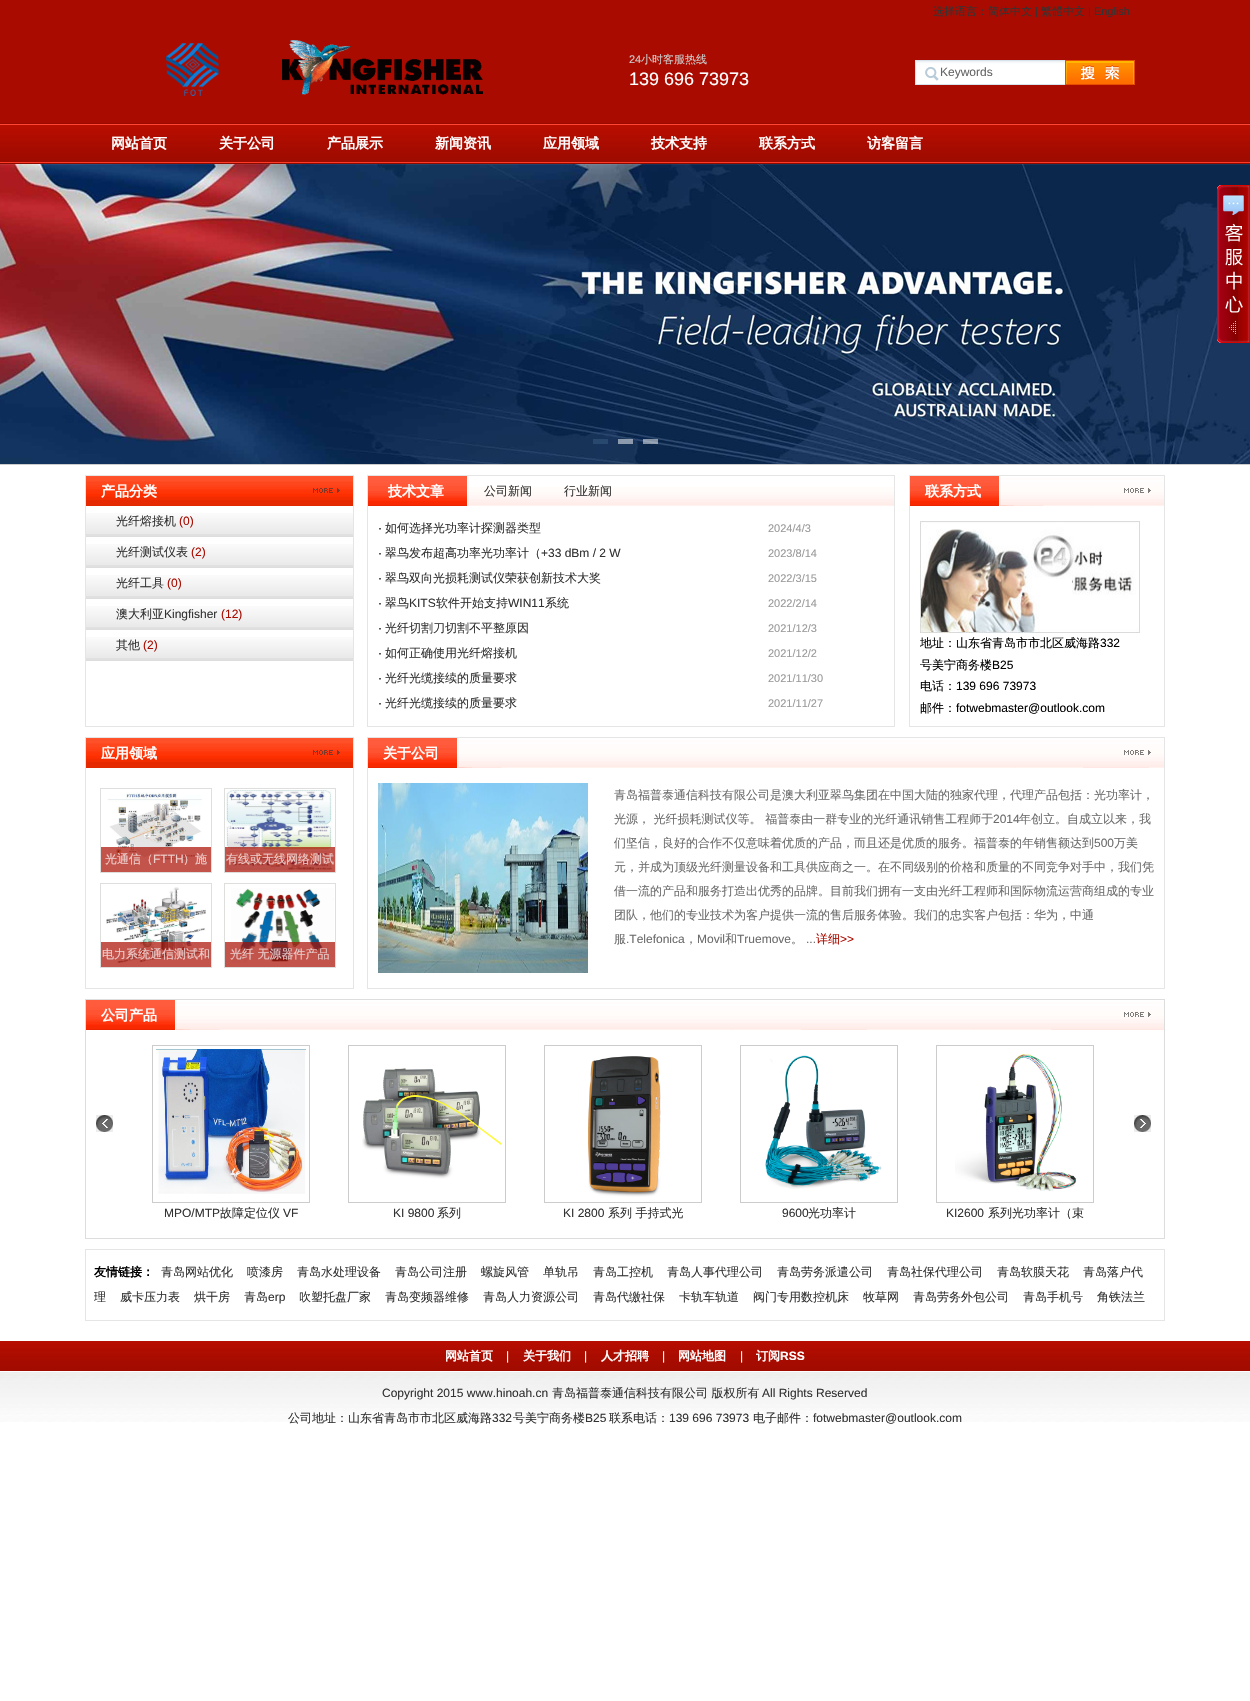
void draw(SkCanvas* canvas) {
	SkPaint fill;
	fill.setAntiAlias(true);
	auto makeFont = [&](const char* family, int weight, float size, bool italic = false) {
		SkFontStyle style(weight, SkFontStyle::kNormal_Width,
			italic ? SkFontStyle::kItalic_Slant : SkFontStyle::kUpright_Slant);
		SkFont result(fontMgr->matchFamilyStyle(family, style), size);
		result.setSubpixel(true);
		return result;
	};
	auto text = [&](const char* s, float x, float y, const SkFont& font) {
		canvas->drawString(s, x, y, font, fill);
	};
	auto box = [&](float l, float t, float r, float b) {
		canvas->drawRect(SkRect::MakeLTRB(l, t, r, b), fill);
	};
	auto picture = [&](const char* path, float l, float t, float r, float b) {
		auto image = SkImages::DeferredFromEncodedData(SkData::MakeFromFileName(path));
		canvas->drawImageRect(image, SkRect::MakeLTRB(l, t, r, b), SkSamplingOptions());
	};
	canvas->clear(0xFFFFFFFF);
	fill.setColor(0xFFAA0B00);
	box(0, 0, 1250, 123);
	picture("image0.png", 166, 40, 483, 96);
	picture("image1.png", 915, 60, 1135, 85);
	picture("image2.png", 0, 123, 1250, 164);
	fill.setColor(0xFFCCCCCC);
	box(0, 464, 1250, 465);
	picture("image3.png", 0, 164, 1250, 464);
	fill.setColor(0x80375C81);
	box(593, 439, 608, 444);
	fill.setColor(0x80FFFFFF);
	box(618, 439, 633, 444);
	box(643, 439, 658, 444);
	fill.setStyle(SkPaint::kStroke_Style);
	fill.setStrokeWidth(1);
	fill.setColor(0xFFE5E5E5);
	canvas->drawRect(SkRect::MakeLTRB(85.5f, 475.5f, 353.5f, 726.5f), fill);
	picture("image4.png", 86, 476, 353, 506);
	picture("image5.png", 313, 488, 340, 493);
	picture("image6.png", 86, 513, 353, 536);
	fill.setStyle(SkPaint::kFill_Style);
	fill.setColor(0xFFDDDDDD);
	box(86, 536, 353, 537);
	picture("image6.png", 86, 544, 353, 567);
	box(86, 567, 353, 568);
	picture("image6.png", 86, 575, 353, 598);
	box(86, 598, 353, 599);
	picture("image6.png", 86, 606, 353, 629);
	box(86, 629, 353, 630);
	picture("image6.png", 86, 637, 353, 660);
	box(86, 660, 353, 661);
	fill.setStyle(SkPaint::kStroke_Style);
	fill.setColor(0xFFE5E5E5);
	canvas->drawRect(SkRect::MakeLTRB(367.5f, 475.5f, 894.5f, 726.5f), fill);
	picture("image7.png", 467, 487, 894, 506);
	picture("image8.png", 368, 476, 468, 506);
	canvas->drawRect(SkRect::MakeLTRB(909.5f, 475.5f, 1164.5f, 726.5f), fill);
	picture("image9.png", 910, 476, 1164, 506);
	picture("image10.png", 1124, 488, 1151, 493);
	picture("image11.png", 920, 521, 1140, 633);
	canvas->drawRect(SkRect::MakeLTRB(85.5f, 737.5f, 353.5f, 988.5f), fill);
	picture("image4.png", 86, 738, 353, 768);
	picture("image5.png", 313, 750, 340, 755);
	fill.setColor(0xFFDEDEDC);
	canvas->drawRect(SkRect::MakeLTRB(100.5f, 788.5f, 211.5f, 872.5f), fill);
	picture("image12.png", 107, 792, 202, 860);
	fill.setStyle(SkPaint::kFill_Style);
	fill.setColor(0xB3AA0B00);
	box(101, 847, 211, 872);
	fill.setStyle(SkPaint::kStroke_Style);
	fill.setColor(0xFFDEDEDC);
	canvas->drawRect(SkRect::MakeLTRB(224.5f, 788.5f, 335.5f, 872.5f), fill);
	picture("image13.png", 226, 790, 333, 871);
	fill.setStyle(SkPaint::kFill_Style);
	fill.setColor(0xB3AA0B00);
	box(225, 847, 335, 872);
	fill.setStyle(SkPaint::kStroke_Style);
	fill.setColor(0xFFDEDEDC);
	canvas->drawRect(SkRect::MakeLTRB(100.5f, 883.5f, 211.5f, 967.5f), fill);
	picture("image14.png", 106, 887, 206, 963);
	fill.setStyle(SkPaint::kFill_Style);
	fill.setColor(0xB3AA0B00);
	box(101, 942, 211, 967);
	fill.setStyle(SkPaint::kStroke_Style);
	fill.setColor(0xFFDEDEDC);
	canvas->drawRect(SkRect::MakeLTRB(224.5f, 883.5f, 335.5f, 967.5f), fill);
	picture("image15.png", 231, 888, 334, 963);
	fill.setStyle(SkPaint::kFill_Style);
	fill.setColor(0xB3AA0B00);
	box(225, 942, 335, 967);
	fill.setStyle(SkPaint::kStroke_Style);
	fill.setColor(0xFFE5E5E5);
	canvas->drawRect(SkRect::MakeLTRB(367.5f, 737.5f, 1164.5f, 988.5f), fill);
	picture("image16.png", 368, 738, 1164, 768);
	picture("image10.png", 1124, 750, 1151, 755);
	picture("image17.png", 378, 783, 588, 973);
	fill.setColor(0xFFDDDDDD);
	canvas->drawRect(SkRect::MakeLTRB(85.5f, 999.5f, 1164.5f, 1238.5f), fill);
	picture("image18.png", 86, 1000, 1164, 1030);
	picture("image10.png", 1124, 1012, 1151, 1017);
	picture("image19.png", 96, 1115, 113, 1132);
	picture("image20.png", 1134, 1115, 1151, 1132);
	fill.setColor(0xFFCCCCCC);
	canvas->drawRect(SkRect::MakeLTRB(152.5f, 1045.5f, 309.5f, 1202.5f), fill);
	picture("image21.png", 156, 1049, 306, 1194);
	canvas->drawRect(SkRect::MakeLTRB(348.5f, 1045.5f, 505.5f, 1202.5f), fill);
	picture("image22.png", 362, 1068, 502, 1179);
	canvas->drawRect(SkRect::MakeLTRB(544.5f, 1045.5f, 701.5f, 1202.5f), fill);
	picture("image23.png", 588, 1056, 661, 1197);
	canvas->drawRect(SkRect::MakeLTRB(740.5f, 1045.5f, 897.5f, 1202.5f), fill);
	picture("image24.png", 765, 1055, 882, 1189);
	canvas->drawRect(SkRect::MakeLTRB(936.5f, 1045.5f, 1093.5f, 1202.5f), fill);
	picture("image25.png", 955, 1054, 1077, 1191);
	fill.setColor(0xFFE5E5E5);
	canvas->drawRect(SkRect::MakeLTRB(85.5f, 1249.5f, 1164.5f, 1320.5f), fill);
	picture("image26.png", 0, 1372, 1250, 1422);
	picture("image27.png", 0, 1341, 1250, 1371);
	picture("image28.png", 1217, 185, 1250, 343);
	auto font1 = makeFont("WenQuanYi Zen Hei", 500, 11);
	fill.setStyle(SkPaint::kFill_Style);
	fill.setColor(0xFF333333);
	text("选择语言：简体中文", 933, 15, font1);
	auto font2 = makeFont("Liberation Sans", 400, 11);
	text("|", 1035, 15, font2);
	text("繁體中文", 1041, 15, font1);
	text("| English", 1088, 15, font2);
	fill.setColor(0xFFCCCCCC);
	text("24", 629, 63, font2);
	text("小时客服热线", 641, 63, font1);
	auto font3 = makeFont("Liberation Sans", 400, 18);
	fill.setColor(0xFFFFFFFF);
	text("139 696 73973", 629, 85, font3);
	auto font4 = makeFont("Liberation Sans", 400, 12);
	fill.setColor(0xFF666666);
	text("Keywords", 940, 76, font4);
	auto font5 = makeFont("WenQuanYi Zen Hei", 700, 14);
	fill.setColor(0xFFFFFFFF);
	text("网站首页", 111, 148, font5);
	text("关于公司", 219, 148, font5);
	text("产品展示", 327, 148, font5);
	text("新闻资讯", 435, 148, font5);
	text("应用领域", 543, 148, font5);
	text("技术支持", 651, 148, font5);
	text("联系方式", 759, 148, font5);
	text("访客留言", 867, 148, font5);
	text("产品分类", 101, 496, font5);
	auto font6 = makeFont("WenQuanYi Zen Hei", 500, 12);
	fill.setColor(0xFF333333);
	text("光纤熔接机", 116, 525, font6);
	fill.setColor(0xFFAA0B00);
	text("(0)", 179, 525, font4);
	fill.setColor(0xFF333333);
	text("光纤测试仪表", 116, 556, font6);
	fill.setColor(0xFFAA0B00);
	text("(2)", 191, 556, font4);
	fill.setColor(0xFF333333);
	text("光纤工具", 116, 587, font6);
	fill.setColor(0xFFAA0B00);
	text("(0)", 167, 587, font4);
	fill.setColor(0xFF333333);
	text("澳大利亚", 116, 618, font6);
	text("Kingfisher", 164, 618, font4);
	fill.setColor(0xFFAA0B00);
	text("(12)", 221, 618, font4);
	fill.setColor(0xFF333333);
	text("其他", 116, 649, font6);
	fill.setColor(0xFFAA0B00);
	text("(2)", 143, 649, font4);
	fill.setColor(0xFFFFFFFF);
	text("技术文章", 388, 496, font5);
	fill.setColor(0xFF333333);
	text("公司新闻", 484, 495, font6);
	text("行业新闻", 564, 495, font6);
	fill.setColor(0xFF000000);
	text("·", 378, 532, font4);
	fill.setColor(0xFF333333);
	text("如何选择光功率计探测器类型", 385, 532, font6);
	fill.setColor(0xFF9A9A9A);
	text("2024/4/3", 768, 532, font2);
	fill.setColor(0xFF000000);
	text("·", 378, 557, font4);
	fill.setColor(0xFF333333);
	text("翠鸟发布超高功率光功率计（", 385, 557, font6);
	text("+33 dBm / 2 W", 541, 557, font4);
	fill.setColor(0xFF9A9A9A);
	text("2023/8/14", 768, 557, font2);
	fill.setColor(0xFF000000);
	text("·", 378, 582, font4);
	fill.setColor(0xFF333333);
	text("翠鸟双向光损耗测试仪荣获创新技术大奖", 385, 582, font6);
	fill.setColor(0xFF9A9A9A);
	text("2022/3/15", 768, 582, font2);
	fill.setColor(0xFF000000);
	text("·", 378, 607, font4);
	fill.setColor(0xFF333333);
	text("翠鸟", 385, 607, font6);
	text("KITS", 409, 607, font4);
	text("软件开始支持", 436, 607, font6);
	text("WIN11", 508, 607, font4);
	text("系统", 545, 607, font6);
	fill.setColor(0xFF9A9A9A);
	text("2022/2/14", 768, 607, font2);
	fill.setColor(0xFF000000);
	text("·", 378, 632, font4);
	fill.setColor(0xFF333333);
	text("光纤切割刀切割不平整原因", 385, 632, font6);
	fill.setColor(0xFF9A9A9A);
	text("2021/12/3", 768, 632, font2);
	fill.setColor(0xFF000000);
	text("·", 378, 657, font4);
	fill.setColor(0xFF333333);
	text("如何正确使用光纤熔接机", 385, 657, font6);
	fill.setColor(0xFF9A9A9A);
	text("2021/12/2", 768, 657, font2);
	fill.setColor(0xFF000000);
	text("·", 378, 682, font4);
	fill.setColor(0xFF333333);
	text("光纤光缆接续的质量要求", 385, 682, font6);
	fill.setColor(0xFF9A9A9A);
	text("2021/11/30", 768, 682, font2);
	fill.setColor(0xFF000000);
	text("·", 378, 707, font4);
	fill.setColor(0xFF333333);
	text("光纤光缆接续的质量要求", 385, 707, font6);
	fill.setColor(0xFF9A9A9A);
	text("2021/11/27", 768, 707, font2);
	fill.setColor(0xFFFFFFFF);
	text("联系方式", 925, 496, font5);
	fill.setColor(0xFF000000);
	text("地址：山东省青岛市市北区威海路", 920, 647, font6);
	text("332", 1100, 647, font4);
	text("号美宁商务楼", 920, 669, font6);
	text("B25", 992, 669, font4);
	text("电话：", 920, 690, font6);
	text("139 696 73973", 956, 690, font4);
	text("邮件：", 920, 712, font6);
	text("fotwebmaster@outlook.com", 956, 712, font4);
	fill.setColor(0xFFFFFFFF);
	text("应用领域", 101, 758, font5);
	fill.setColor(0xFFEDCCC9);
	text("光通信（", 105, 863, font6);
	text("FTTH", 153, 863, font4);
	text("）施", 183, 863, font6);
	text("有线或无线网络测试", 226, 863, font6);
	text("电力系统通信测试和", 102, 958, font6);
	fill.setColor(0xFFE7C8C6);
	text("光纤 无源器件产品", 230, 958, font6);
	fill.setColor(0xFFFFFFFF);
	text("关于公司", 383, 758, font5);
	fill.setColor(0xFF6C6C6C);
	text("青岛福普泰通信科技有限公司是澳大利亚翠鸟集团在中国大陆的独家代理，代理产品包括：光功率计，", 614, 799, font6);
	text("光源， 光纤损耗测试仪等。 福普泰由一群专业的光纤通讯销售工程师于", 614, 823, font6);
	text("2014", 993, 823, font4);
	text("年创立。自成立以来，我", 1019, 823, font6);
	text("们坚信，良好的合作不仅意味着优质的产品，而且还是优质的服务。福普泰的年销售额达到", 614, 847, font6);
	text("500", 1094, 847, font4);
	text("万美", 1114, 847, font6);
	text("元，并成为顶级光纤测量设备和工具供应商之一。在不同级别的价格和质量的不同竞争对手中，我们凭", 614, 871, font6);
	text("借一流的产品和服务打造出优秀的品牌。目前我们拥有一支由光纤工程师和国际物流运营商组成的专业", 614, 895, font6);
	text("团队，他们的专业技术为客户提供一流的售后服务体验。我们的忠实客户包括：华为，中通", 614, 919, font6);
	text("服", 614, 943, font6);
	text(".Telefonica", 626, 943, font4);
	text("，", 685, 943, font6);
	text("Movil", 697, 943, font4);
	text("和", 725, 943, font6);
	text("Truemove", 737, 943, font4);
	text("。", 791, 943, font6);
	text("...", 806, 943, font4);
	fill.setColor(0xFFAA0B00);
	text("详细", 816, 943, font6);
	text(">>", 840, 943, font4);
	fill.setColor(0xFFFFFFFF);
	text("公司产品", 101, 1020, font5);
	fill.setColor(0xFF333333);
	text("MPO/MTP", 164, 1217, font4);
	text("故障定位仪", 220, 1217, font6);
	text("VF", 283, 1217, font4);
	text("KI 9800", 393, 1217, font4);
	text("系列", 437, 1217, font6);
	text("KI 2800", 563, 1217, font4);
	text("系列 手持式光", 608, 1217, font6);
	text("9600", 782, 1217, font4);
	text("光功率计", 808, 1217, font6);
	text("KI2600", 946, 1217, font4);
	text("系列光功率计（束", 988, 1217, font6);
	auto font7 = makeFont("WenQuanYi Zen Hei", 700, 12);
	fill.setColor(0xFF000000);
	text("友情链接：", 94, 1276, font7);
	fill.setColor(0xFF333333);
	text("青岛网站优化", 161, 1276, font6);
	text("喷漆房", 247, 1276, font6);
	text("青岛水处理设备", 297, 1276, font6);
	text("青岛公司注册", 395, 1276, font6);
	text("螺旋风管", 481, 1276, font6);
	text("单轨吊", 543, 1276, font6);
	text("青岛工控机", 593, 1276, font6);
	text("青岛人事代理公司", 667, 1276, font6);
	text("青岛劳务派遣公司", 777, 1276, font6);
	text("青岛社保代理公司", 887, 1276, font6);
	text("青岛软膜天花", 997, 1276, font6);
	text("青岛落户代", 1083, 1276, font6);
	text("理", 94, 1301, font6);
	text("威卡压力表", 120, 1301, font6);
	text("烘干房", 194, 1301, font6);
	text("青岛", 244, 1301, font6);
	text("erp", 268, 1301, font4);
	text("吹塑托盘厂家", 299, 1301, font6);
	text("青岛变频器维修", 385, 1301, font6);
	text("青岛人力资源公司", 483, 1301, font6);
	text("青岛代缴社保", 593, 1301, font6);
	text("卡轨车轨道", 679, 1301, font6);
	text("阀门专用数控机床", 753, 1301, font6);
	text("牧草网", 863, 1301, font6);
	text("青岛劳务外包公司", 913, 1301, font6);
	text("青岛手机号", 1023, 1301, font6);
	text("角铁法兰", 1097, 1301, font6);
	fill.setColor(0xFFFFFFFF);
	text("网站首页", 445, 1360, font7);
	text("|", 506, 1360, font4);
	text("关于我们", 523, 1360, font7);
	text("|", 584, 1360, font4);
	text("人才招聘", 601, 1360, font7);
	text("|", 662, 1360, font4);
	text("网站地图", 678, 1360, font7);
	text("|", 740, 1360, font4);
	text("订阅", 756, 1360, font7);
	auto font8 = makeFont("Liberation Sans", 700, 12);
	text("RSS", 780, 1360, font8);
	fill.setColor(0xFF333333);
	text("Copyright 2015 www.hinoah.cn", 382, 1397, font4);
	text("青岛福普泰通信科技有限公司 版权所有", 552, 1397, font6);
	text("All Rights Reserved", 762, 1397, font4);
	text("公司地址：山东省青岛市市北区威海路", 288, 1422, font6);
	text("332", 492, 1422, font4);
	text("号美宁商务楼", 513, 1422, font6);
	text("B25", 585, 1422, font4);
	text("联系电话：", 609, 1422, font6);
	text("139 696 73973", 669, 1422, font4);
	text("电子邮件：", 753, 1422, font6);
	text("fotwebmaster@outlook.com", 813, 1422, font4);
}
